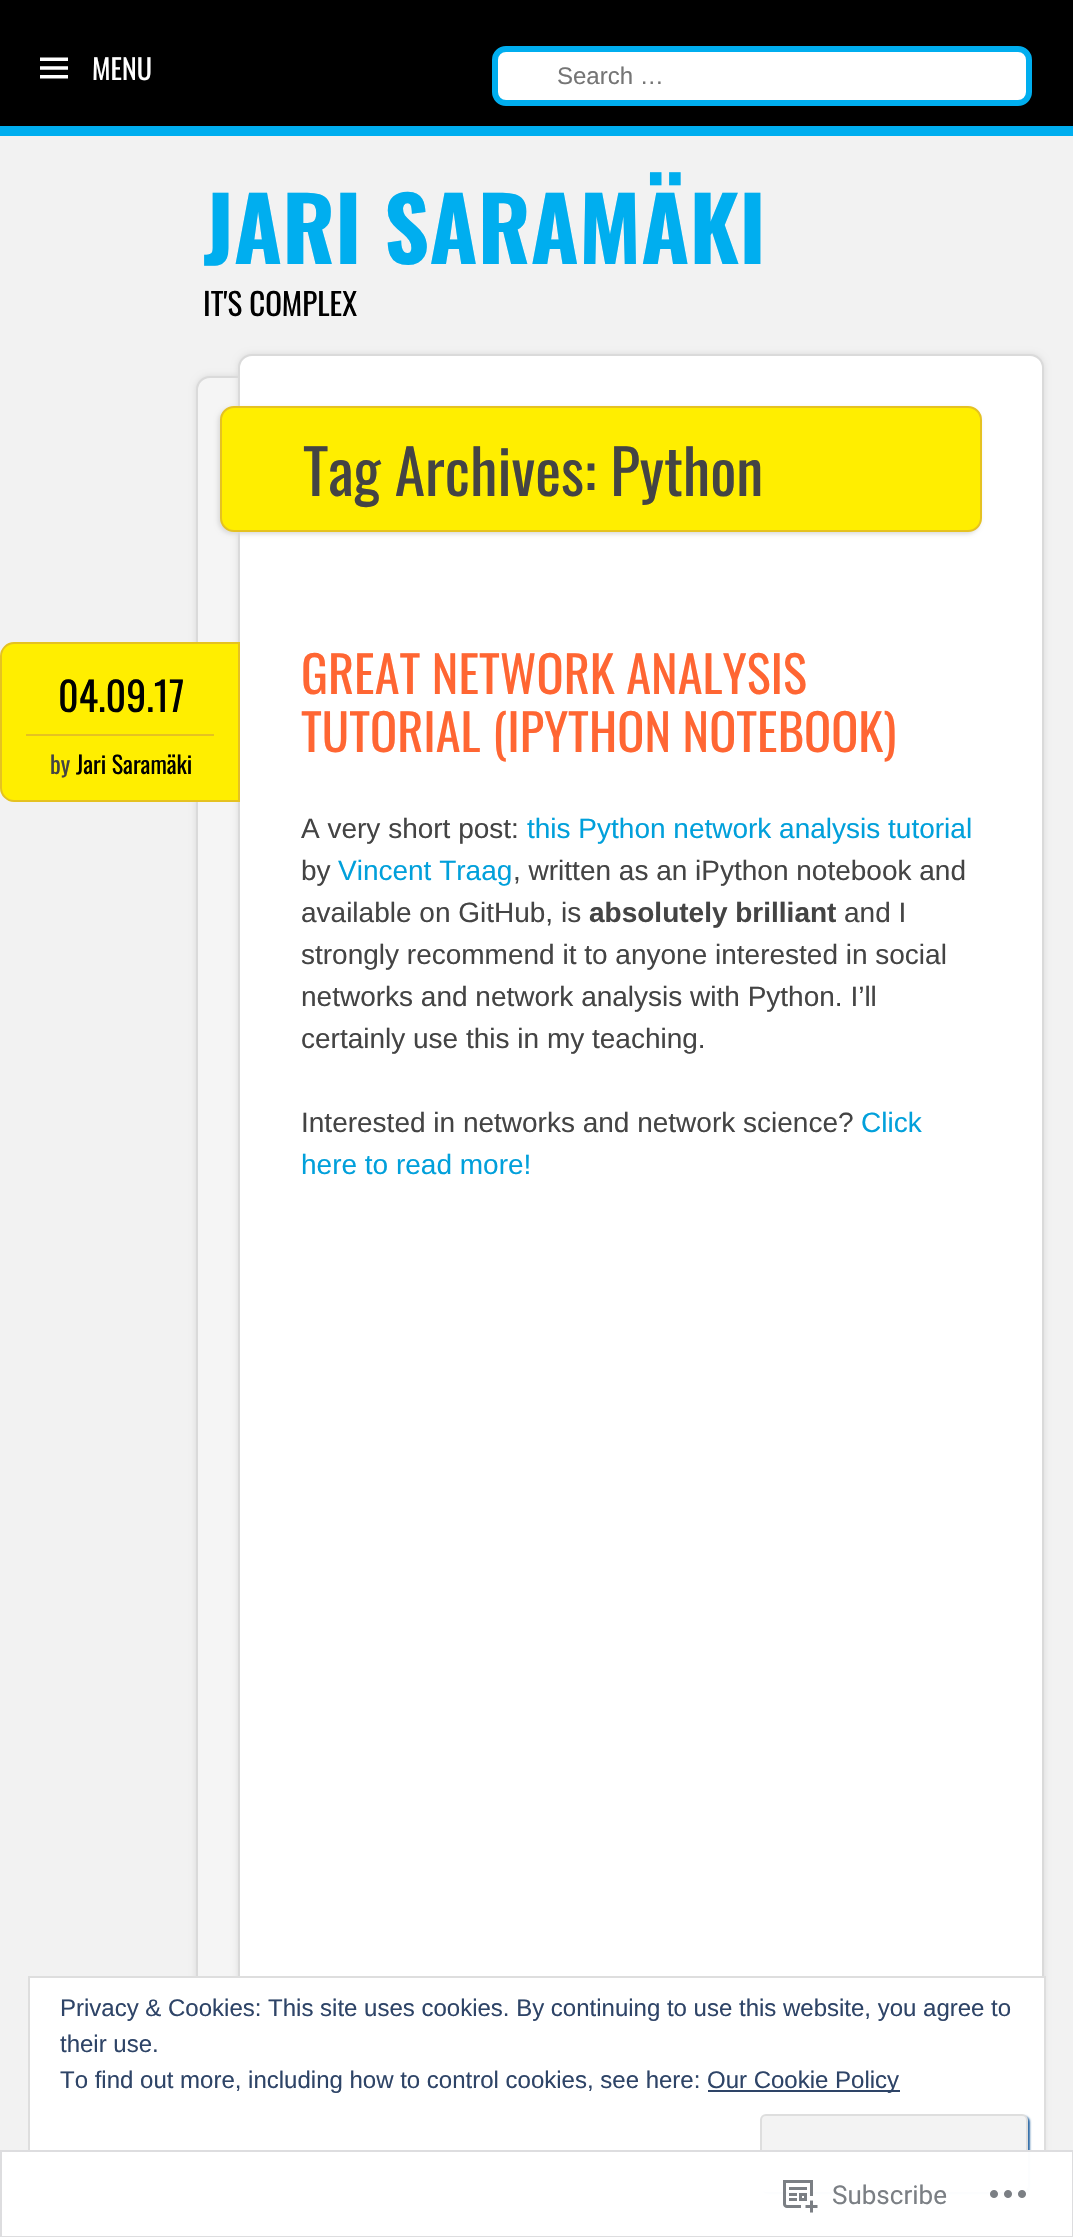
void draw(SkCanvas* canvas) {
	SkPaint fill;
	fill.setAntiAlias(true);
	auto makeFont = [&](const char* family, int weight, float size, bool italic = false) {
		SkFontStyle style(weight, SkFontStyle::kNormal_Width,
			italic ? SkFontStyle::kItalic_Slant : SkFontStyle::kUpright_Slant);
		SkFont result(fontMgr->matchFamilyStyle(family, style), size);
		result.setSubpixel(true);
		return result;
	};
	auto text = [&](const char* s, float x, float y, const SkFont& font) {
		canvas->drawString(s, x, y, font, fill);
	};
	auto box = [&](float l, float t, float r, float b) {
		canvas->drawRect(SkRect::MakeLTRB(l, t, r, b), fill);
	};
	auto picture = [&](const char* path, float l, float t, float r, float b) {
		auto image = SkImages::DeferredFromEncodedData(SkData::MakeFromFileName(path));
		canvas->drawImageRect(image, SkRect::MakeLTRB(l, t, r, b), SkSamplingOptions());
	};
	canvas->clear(0xFFF2F2F2);
	fill.setColor(0xFF000000);
	box(0, 0, 1073, 126);
	fill.setColor(0xFF00AEEF);
	box(0, 126, 1073, 136);
	picture("image0.png", 40, 57, 68, 79);
	fill.setColor(0xFFFFFFFF);
	canvas->drawRoundRect(SkRect::MakeLTRB(495, 49, 1029, 103), 11, 11, fill);
	fill.setStyle(SkPaint::kStroke_Style);
	fill.setStrokeWidth(6);
	fill.setColor(0xFF00AEEF);
	canvas->drawRoundRect(SkRect::MakeLTRB(495, 49, 1029, 103), 11, 11, fill);
	fill.setStyle(SkPaint::kFill_Style);
	fill.setColor(0xFFDADADA);
	fill.setMaskFilter(SkMaskFilter::MakeBlur(kNormal_SkBlurStyle, 3));
	canvas->drawRoundRect(SkRect::MakeLTRB(196, 376, 1032, 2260), 14, 14, fill);
	fill.setMaskFilter(nullptr);
	fill.setColor(0xFFF5F5F5);
	canvas->drawRoundRect(SkRect::MakeLTRB(197, 377, 1031, 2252), 13, 13, fill);
	fill.setStyle(SkPaint::kStroke_Style);
	fill.setStrokeWidth(2);
	fill.setColor(0xFFDADADA);
	canvas->drawRoundRect(SkRect::MakeLTRB(197, 377, 1031, 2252), 13, 13, fill);
	fill.setStyle(SkPaint::kFill_Style);
	fill.setMaskFilter(SkMaskFilter::MakeBlur(kNormal_SkBlurStyle, 3));
	canvas->drawRoundRect(SkRect::MakeLTRB(238, 354, 1044, 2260), 14, 14, fill);
	fill.setMaskFilter(nullptr);
	fill.setColor(0xFFFFFFFF);
	canvas->drawRoundRect(SkRect::MakeLTRB(239, 355, 1043, 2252), 13, 13, fill);
	fill.setStyle(SkPaint::kStroke_Style);
	fill.setColor(0xFFDADADA);
	canvas->drawRoundRect(SkRect::MakeLTRB(239, 355, 1043, 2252), 13, 13, fill);
	fill.setStyle(SkPaint::kFill_Style);
	fill.setMaskFilter(SkMaskFilter::MakeBlur(kNormal_SkBlurStyle, 2));
	canvas->drawRoundRect(SkRect::MakeLTRB(218, 408, 980, 534), 14, 14, fill);
	fill.setMaskFilter(nullptr);
	fill.setColor(0xFFFFEE00);
	canvas->drawRoundRect(SkRect::MakeLTRB(221, 407, 981, 531), 13, 13, fill);
	fill.setStyle(SkPaint::kStroke_Style);
	fill.setColor(0xFFE5C221);
	canvas->drawRoundRect(SkRect::MakeLTRB(221, 407, 981, 531), 13, 13, fill);
	fill.setStyle(SkPaint::kFill_Style);
	fill.setColor(0xFFFFEE00);
	canvas->drawPath(SkPathBuilder().moveTo(14, 643).lineTo(239, 643).lineTo(239, 801).lineTo(14, 801).cubicTo(7, 801, 1, 795, 1, 788).lineTo(1, 656).cubicTo(1, 649, 7, 643, 14, 643).close().detach(), fill);
	fill.setStyle(SkPaint::kStroke_Style);
	fill.setColor(0xFFE5C221);
	canvas->drawPath(SkPathBuilder().moveTo(14, 643).lineTo(239, 643).lineTo(239, 801).lineTo(14, 801).cubicTo(7, 801, 1, 795, 1, 788).lineTo(1, 656).cubicTo(1, 649, 7, 643, 14, 643).close().detach(), fill);
	fill.setStyle(SkPaint::kFill_Style);
	box(26, 734, 214, 736);
	fill.setColor(0xFFFFFFFF);
	canvas->drawRect(SkRect::MakeLTRB(29, 1977, 1045, 2209), fill);
	fill.setStyle(SkPaint::kStroke_Style);
	fill.setColor(0xFFDEDEDE);
	canvas->drawRect(SkRect::MakeLTRB(29, 1977, 1045, 2209), fill);
	fill.setStyle(SkPaint::kFill_Style);
	fill.setColor(0xFF2E4467);
	box(708, 2090, 900, 2092);
	fill.setColor(0xFF2E6AA7);
	fill.setMaskFilter(SkMaskFilter::MakeBlur(kNormal_SkBlurStyle, 1));
	canvas->drawRoundRect(SkRect::MakeLTRB(762, 2116, 1030, 2194), 6, 6, fill);
	fill.setMaskFilter(nullptr);
	fill.setColor(0xFFF3F3F3);
	canvas->drawRoundRect(SkRect::MakeLTRB(761, 2115, 1027, 2191), 5, 5, fill);
	fill.setStyle(SkPaint::kStroke_Style);
	fill.setColor(0xFFDEDEDE);
	canvas->drawRoundRect(SkRect::MakeLTRB(761, 2115, 1027, 2191), 5, 5, fill);
	fill.setStyle(SkPaint::kFill_Style);
	fill.setColor(0xFAFFFFFF);
	box(0, 2150, 1073, 2237);
	fill.setStyle(SkPaint::kStroke_Style);
	fill.setColor(0xFADCDCDE);
	canvas->drawRect(SkRect::MakeLTRB(1, 2151, 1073, 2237), fill);
	picture("image1.png", 783, 2180, 818, 2213);
	picture("image2.png", 990, 2190, 1026, 2198);
	auto font1 = makeFont("Oswald", 400, 28);
	fill.setStyle(SkPaint::kFill_Style);
	fill.setColor(0xFFFFFFFF);
	text("MENU", 92, 80, font1);
	auto font2 = makeFont("Liberation Sans", 400, 24);
	fill.setColor(0xFF757575);
	text("Search …", 557, 84, font2);
	auto font3 = makeFont("Oswald", 700, 88);
	fill.setColor(0xFF00AEEF);
	text("JARI SARAMÄKI", 203, 264, font3);
	auto font4 = makeFont("Oswald", 400, 31);
	fill.setColor(0xFF000000);
	text("IT'S COMPLEX", 203, 316, font4);
	auto font5 = makeFont("Oswald", 400, 61.5f);
	fill.setColor(0xFF444444);
	text("Tag Archives: Python", 303, 496, font5);
	auto font6 = makeFont("Oswald", 400, 40);
	fill.setColor(0xFF000000);
	text("04.09.17", 58, 712, font6);
	auto font7 = makeFont("Oswald", 400, 24);
	fill.setColor(0xFF444444);
	text("by", 50, 774, font7);
	fill.setColor(0xFF000000);
	text("Jari Saramäki", 76, 774, font7);
	auto font8 = makeFont("Oswald", 400, 50.4f);
	fill.setColor(0xFFFF6633);
	text("GREAT NETWORK ANALYSIS", 301, 694, font8);
	text("TUTORIAL (IPYTHON NOTEBOOK)", 301, 752, font8);
	auto font9 = makeFont("Liberation Sans", 400, 28);
	fill.setColor(0xFF444444);
	text("A very short post:", 301, 838, font9);
	fill.setColor(0xFF01A0DB);
	text("this Python network analysis tutorial", 527, 838, font9);
	fill.setColor(0xFF444444);
	text("by", 301, 880, font9);
	fill.setColor(0xFF01A0DB);
	text("Vincent Traag", 338, 880, font9);
	fill.setColor(0xFF444444);
	text(", written as an iPython notebook and", 513, 880, font9);
	text("available on GitHub, is", 301, 922, font9);
	auto font10 = makeFont("Liberation Sans", 700, 28);
	text("absolutely brilliant", 589, 922, font10);
	text("and I", 844, 922, font9);
	text("strongly recommend it to anyone interested in social", 301, 964, font9);
	text("networks and network analysis with Python. I’ll", 301, 1006, font9);
	text("certainly use this in my teaching.", 301, 1048, font9);
	text("Interested in networks and network science?", 301, 1132, font9);
	fill.setColor(0xFF01A0DB);
	text("Click", 861, 1132, font9);
	text("here to read more!", 301, 1174, font9);
	fill.setColor(0xFF2E4467);
	text("Privacy & Cookies: This site uses cookies. By continuing to use this website, you agree to", 60, 2016, font2);
	text("their use.", 60, 2052, font2);
	text("To find out more, including how to control cookies, see here:", 60, 2088, font2);
	text("Our Cookie Policy", 707, 2088, font2);
	auto font11 = makeFont("Roboto", 400, 26);
	fill.setColor(0xFF7B7F84);
	text("Subscribe", 832, 2204, font11);
}
